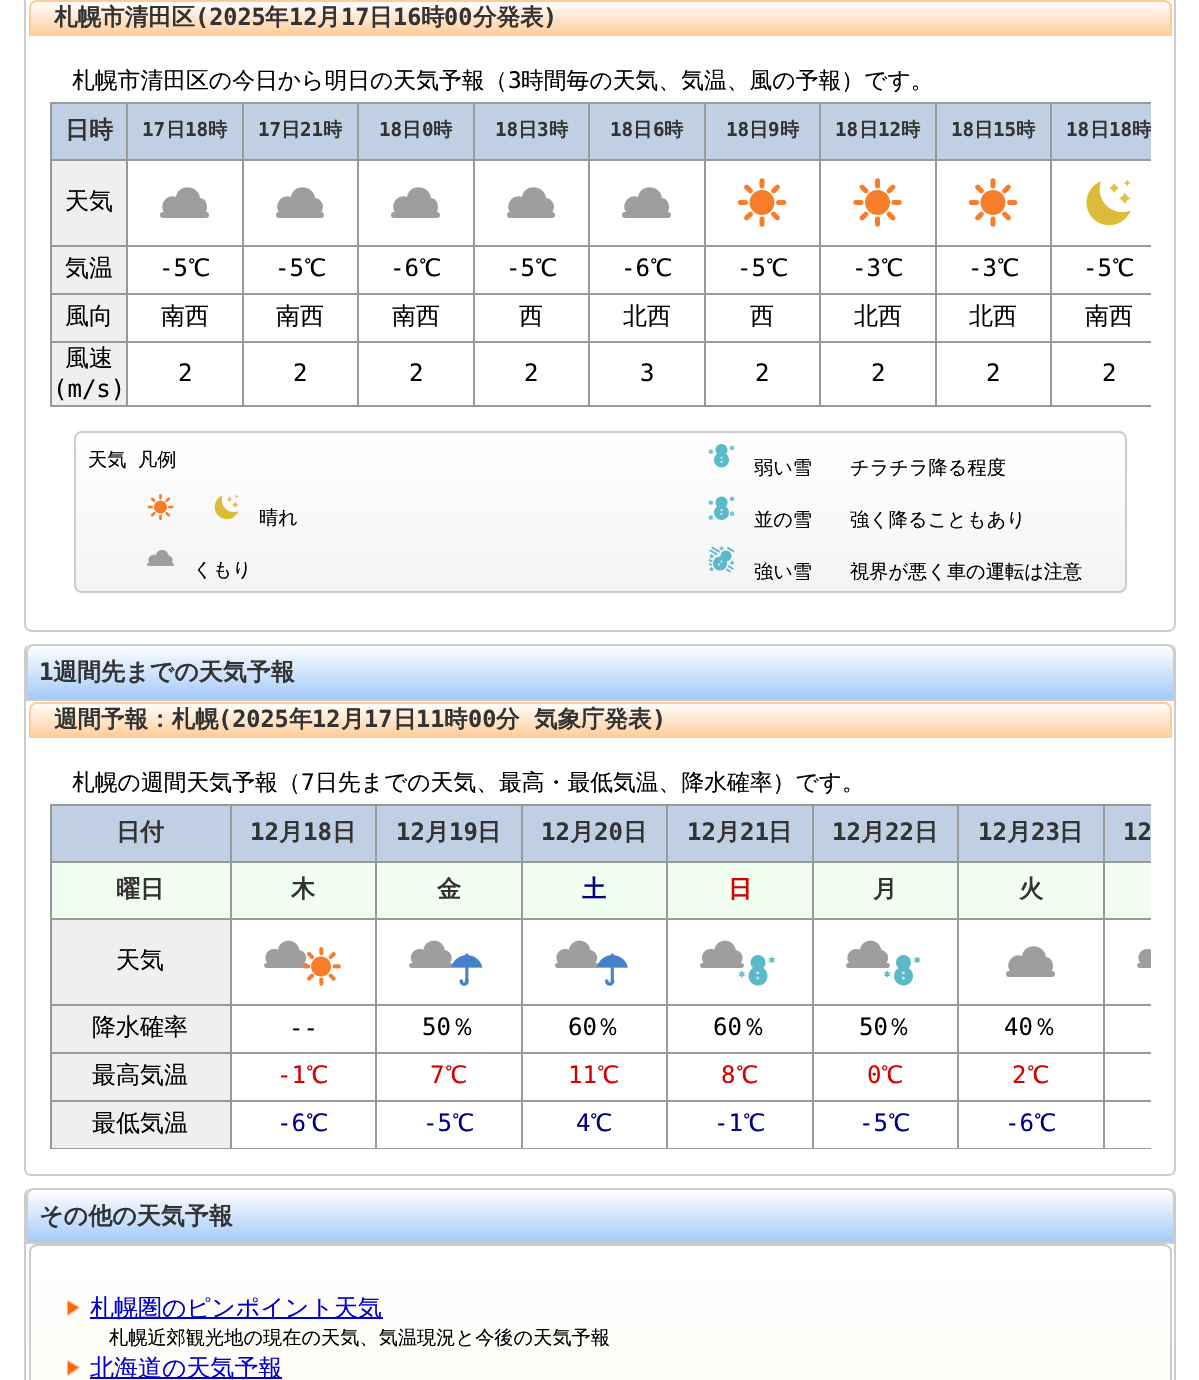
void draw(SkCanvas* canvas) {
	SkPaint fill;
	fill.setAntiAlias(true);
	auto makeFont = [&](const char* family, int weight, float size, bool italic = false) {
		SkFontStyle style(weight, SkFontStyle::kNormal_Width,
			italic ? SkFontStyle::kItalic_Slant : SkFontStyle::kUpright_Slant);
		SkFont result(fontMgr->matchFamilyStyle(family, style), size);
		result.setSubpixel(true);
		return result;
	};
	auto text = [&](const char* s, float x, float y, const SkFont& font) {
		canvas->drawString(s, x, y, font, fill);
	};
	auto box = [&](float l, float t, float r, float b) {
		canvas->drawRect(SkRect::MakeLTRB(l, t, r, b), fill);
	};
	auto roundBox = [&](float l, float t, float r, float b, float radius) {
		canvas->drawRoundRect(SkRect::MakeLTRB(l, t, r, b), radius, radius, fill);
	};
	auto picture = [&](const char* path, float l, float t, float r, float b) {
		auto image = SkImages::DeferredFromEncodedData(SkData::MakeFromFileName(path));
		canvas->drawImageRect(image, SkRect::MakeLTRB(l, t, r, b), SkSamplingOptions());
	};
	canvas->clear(0xFFFFFFFF);
	fill.setColor(0xFFCCCCCC);
	canvas->drawPath(SkPathBuilder(SkPathFillType::kEvenOdd).moveTo(32, -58).lineTo(1168, -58).cubicTo(1173, -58, 1176, -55, 1176, -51).lineTo(1176, 624).cubicTo(1176, 628, 1173, 632, 1168, 632).lineTo(32, 632).cubicTo(27, 632, 24, 628, 24, 624).lineTo(24, -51).cubicTo(24, -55, 27, -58, 32, -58).close().moveTo(32, -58).lineTo(1168, -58).cubicTo(1172, -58, 1174, -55, 1174, -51).lineTo(1174, 624).cubicTo(1174, 627, 1172, 630, 1168, 630).lineTo(32, 630).cubicTo(28, 630, 26, 627, 26, 624).lineTo(26, -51).cubicTo(26, -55, 28, -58, 32, -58).close().detach(), fill);
	canvas->save();
	canvas->clipPath(SkPathBuilder().moveTo(37, 0).lineTo(1164, 0).cubicTo(1168.5f, 0, 1172, 3.5f, 1172, 8).lineTo(1172, 36).lineTo(29, 36).lineTo(29, 8).cubicTo(29, 3.5f, 32.5f, 0, 37, 0).close().detach(), true);
	{
		const SkColor colors[] = {0xFFFFFFFF, 0xFFFFCC99};
		const float stops[] = {0, 1};
		const SkPoint ends[] = {{600, 1.5f}, {600, 35}};
		fill.setShader(SkGradientShader::MakeLinear(ends, colors, stops, 2, SkTileMode::kClamp));
		fill.setAlpha(255);
	}
	box(29, 2, 1172, 34);
	canvas->restore();
	fill.setStyle(SkPaint::kStroke_Style);
	fill.setStrokeWidth(2);
	fill.setShader(nullptr);
	fill.setColor(0xFFFFCC99);
	canvas->drawPath(SkPathBuilder().moveTo(37, 1).lineTo(1164, 1).cubicTo(1168, 1, 1171, 4, 1171, 8).lineTo(1171, 35).lineTo(30, 35).lineTo(30, 8).cubicTo(30, 4, 33, 1, 37, 1).close().detach(), fill);
	fill.setStyle(SkPaint::kFill_Style);
	fill.setColor(0xFF999999);
	box(50, 102, 1151, 104);
	box(50, 405, 1151, 407);
	box(50, 102, 52, 407);
	fill.setColor(0xFFC0CFE4);
	box(52, 104, 126, 159);
	box(128, 104, 242, 159);
	fill.setColor(0xFF999999);
	box(1050, 159, 1151, 161);
	box(1050, 245, 1151, 247);
	box(1050, 293, 1151, 295);
	box(1050, 341, 1151, 343);
	box(1050, 341, 1052, 407);
	box(935, 341, 1052, 343);
	box(1050, 293, 1052, 342);
	box(935, 293, 1052, 295);
	box(1050, 245, 1052, 294);
	box(935, 245, 1052, 247);
	box(1050, 159, 1052, 246);
	box(935, 159, 1052, 161);
	box(935, 341, 937, 407);
	box(819, 341, 936, 343);
	box(935, 293, 937, 342);
	box(819, 293, 936, 295);
	box(935, 245, 937, 294);
	box(819, 245, 936, 247);
	box(935, 159, 937, 246);
	box(819, 159, 936, 161);
	box(819, 341, 821, 407);
	box(704, 341, 821, 343);
	box(819, 293, 821, 342);
	box(704, 293, 821, 295);
	box(819, 245, 821, 294);
	box(704, 245, 821, 247);
	box(819, 159, 821, 246);
	box(704, 159, 821, 161);
	box(704, 341, 706, 407);
	box(588, 341, 705, 343);
	box(704, 293, 706, 342);
	box(588, 293, 705, 295);
	box(704, 245, 706, 294);
	box(588, 245, 705, 247);
	box(704, 159, 706, 246);
	box(588, 159, 705, 161);
	box(588, 341, 590, 407);
	box(473, 341, 590, 343);
	box(588, 293, 590, 342);
	box(473, 293, 590, 295);
	box(588, 245, 590, 294);
	box(473, 245, 590, 247);
	box(588, 159, 590, 246);
	box(473, 159, 590, 161);
	box(473, 341, 475, 407);
	box(357, 341, 474, 343);
	box(473, 293, 475, 342);
	box(357, 293, 474, 295);
	box(473, 245, 475, 294);
	box(357, 245, 474, 247);
	box(473, 159, 475, 246);
	box(357, 159, 474, 161);
	box(357, 341, 359, 407);
	box(242, 341, 359, 343);
	box(357, 293, 359, 342);
	box(242, 293, 359, 295);
	box(357, 245, 359, 294);
	box(242, 245, 359, 247);
	box(357, 159, 359, 246);
	box(242, 159, 359, 161);
	box(242, 341, 244, 407);
	box(126, 341, 243, 343);
	box(242, 293, 244, 342);
	box(126, 293, 243, 295);
	box(242, 245, 244, 294);
	box(126, 245, 243, 247);
	box(242, 159, 244, 246);
	box(126, 159, 243, 161);
	box(126, 341, 128, 407);
	box(50, 341, 128, 343);
	box(126, 293, 128, 342);
	box(50, 293, 128, 295);
	box(126, 245, 128, 294);
	box(50, 245, 128, 247);
	box(126, 159, 128, 246);
	box(50, 159, 128, 161);
	box(126, 102, 128, 161);
	fill.setColor(0xFFC0CFE4);
	box(244, 104, 357, 159);
	fill.setColor(0xFF999999);
	box(242, 102, 244, 161);
	fill.setColor(0xFFC0CFE4);
	box(359, 104, 473, 159);
	fill.setColor(0xFF999999);
	box(357, 102, 359, 161);
	fill.setColor(0xFFC0CFE4);
	box(475, 104, 588, 159);
	fill.setColor(0xFF999999);
	box(473, 102, 475, 161);
	fill.setColor(0xFFC0CFE4);
	box(590, 104, 704, 159);
	fill.setColor(0xFF999999);
	box(588, 102, 590, 161);
	fill.setColor(0xFFC0CFE4);
	box(706, 104, 819, 159);
	fill.setColor(0xFF999999);
	box(704, 102, 706, 161);
	fill.setColor(0xFFC0CFE4);
	box(821, 104, 935, 159);
	fill.setColor(0xFF999999);
	box(819, 102, 821, 161);
	fill.setColor(0xFFC0CFE4);
	box(937, 104, 1050, 159);
	fill.setColor(0xFF999999);
	box(935, 102, 937, 161);
	fill.setColor(0xFFC0CFE4);
	box(1052, 104, 1151, 159);
	fill.setColor(0xFF999999);
	box(1050, 102, 1052, 161);
	fill.setColor(0xFFEFEFEF);
	box(52, 161, 126, 245);
	fill.setColor(0xFF9E9E9E);
	canvas->drawPath(SkPathBuilder().moveTo(207, 207).cubicTo(207, 202, 204, 198, 200, 198).cubicTo(198, 184, 178, 184, 176, 197).cubicTo(166, 193, 157, 207, 166, 214).lineTo(203, 214).cubicTo(206, 213, 207, 210, 207, 207).close().detach(), fill);
	roundBox(160, 212, 209, 218, 3);
	canvas->drawPath(SkPathBuilder().moveTo(323, 207).cubicTo(323, 202, 319, 198, 315, 198).cubicTo(313, 184, 293, 184, 291, 197).cubicTo(281, 193, 272, 207, 281, 214).lineTo(319, 214).cubicTo(321, 213, 323, 210, 323, 207).close().detach(), fill);
	roundBox(276, 212, 324, 218, 3);
	canvas->drawPath(SkPathBuilder().moveTo(438, 207).cubicTo(438, 202, 435, 198, 431, 198).cubicTo(429, 184, 409, 184, 407, 197).cubicTo(397, 193, 388, 207, 397, 214).lineTo(434, 214).cubicTo(437, 213, 438, 210, 438, 207).close().detach(), fill);
	roundBox(391, 212, 440, 218, 3);
	canvas->drawPath(SkPathBuilder().moveTo(554, 207).cubicTo(554, 202, 550, 198, 546, 198).cubicTo(544, 184, 524, 184, 522, 197).cubicTo(512, 193, 503, 207, 512, 214).lineTo(550, 214).cubicTo(552, 213, 554, 210, 554, 207).close().detach(), fill);
	roundBox(507, 212, 555, 218, 3);
	canvas->drawPath(SkPathBuilder().moveTo(669, 207).cubicTo(669, 202, 666, 198, 662, 198).cubicTo(660, 184, 640, 184, 638, 197).cubicTo(628, 193, 619, 207, 628, 214).lineTo(665, 214).cubicTo(668, 213, 669, 210, 669, 207).close().detach(), fill);
	roundBox(622, 212, 671, 218, 3);
	picture("image0.png", 737, 178, 787, 227);
	picture("image1.png", 853, 178, 902, 227);
	picture("image0.png", 968, 178, 1018, 227);
	picture("image2.png", 1086, 179, 1131, 226);
	fill.setColor(0xFFEFEFEF);
	box(52, 247, 126, 293);
	box(52, 295, 126, 341);
	box(52, 343, 126, 405);
	canvas->save();
	canvas->clipPath(SkPathBuilder().moveTo(82, 431).lineTo(1119, 431).cubicTo(1123.5f, 431, 1127, 434.5f, 1127, 439).lineTo(1127, 585).cubicTo(1127, 589.5f, 1123.5f, 593, 1119, 593).lineTo(82, 593).cubicTo(77.5f, 593, 74, 589.5f, 74, 585).lineTo(74, 439).cubicTo(74, 434.5f, 77.5f, 431, 82, 431).close().detach(), true);
	{
		const SkColor colors[] = {0xFFFFFFFF, 0xFFF4F4F4};
		const float stops[] = {0, 1};
		const SkPoint ends[] = {{600, 432}, {600, 591}};
		fill.setShader(SkGradientShader::MakeLinear(ends, colors, stops, 2, SkTileMode::kClamp));
		fill.setAlpha(255);
	}
	box(74, 432, 1127, 591);
	canvas->restore();
	fill.setStyle(SkPaint::kStroke_Style);
	fill.setShader(nullptr);
	fill.setColor(0xFFCCCCCC);
	canvas->drawRoundRect(SkRect::MakeLTRB(75, 432, 1126, 592), 7, 7, fill);
	picture("image3.png", 708, 444, 735, 468);
	picture("image4.png", 147, 494, 174, 520);
	picture("image5.png", 214, 494, 239, 520);
	picture("image6.png", 708, 496, 735, 521);
	picture("image7.png", 147, 549, 174, 566);
	picture("image8.png", 708, 546, 735, 573);
	fill.setStyle(SkPaint::kFill_Style);
	canvas->drawPath(SkPathBuilder(SkPathFillType::kEvenOdd).moveTo(32, 644).lineTo(1168, 644).cubicTo(1173, 644, 1176, 647, 1176, 651).lineTo(1176, 1168).cubicTo(1176, 1173, 1173, 1176, 1168, 1176).lineTo(32, 1176).cubicTo(27, 1176, 24, 1173, 24, 1168).lineTo(24, 651).cubicTo(24, 647, 27, 644, 32, 644).close().moveTo(32, 644).lineTo(1168, 644).cubicTo(1172, 644, 1174, 647, 1174, 651).lineTo(1174, 1168).cubicTo(1174, 1172, 1172, 1174, 1168, 1174).lineTo(32, 1174).cubicTo(28, 1174, 26, 1172, 26, 1168).lineTo(26, 651).cubicTo(26, 647, 28, 644, 32, 644).close().detach(), fill);
	canvas->save();
	canvas->clipPath(SkPathBuilder().moveTo(34, 644).lineTo(1167, 644).cubicTo(1171.5f, 644, 1175, 647.5f, 1175, 652).lineTo(1175, 701).lineTo(26, 701).lineTo(26, 652).cubicTo(26, 647.5f, 29.5f, 644, 34, 644).close().detach(), true);
	{
		const SkColor colors[] = {0xFFFFFFFF, 0xFFA4CAF7};
		const float stops[] = {0, 1};
		const SkPoint ends[] = {{600, 645}, {600, 699}};
		fill.setShader(SkGradientShader::MakeLinear(ends, colors, stops, 2, SkTileMode::kClamp));
		fill.setAlpha(255);
	}
	box(26, 645, 1175, 699);
	canvas->restore();
	fill.setStyle(SkPaint::kStroke_Style);
	fill.setShader(nullptr);
	fill.setColor(0xFFCCCCCC);
	canvas->drawPath(SkPathBuilder().moveTo(34, 645).lineTo(1167, 645).cubicTo(1171, 645, 1174, 648, 1174, 652).lineTo(1174, 700).lineTo(27, 700).lineTo(27, 652).cubicTo(27, 648, 30, 645, 34, 645).close().detach(), fill);
	canvas->save();
	canvas->clipPath(SkPathBuilder().moveTo(37, 702).lineTo(1164, 702).cubicTo(1168.5f, 702, 1172, 705.5f, 1172, 710).lineTo(1172, 738).lineTo(29, 738).lineTo(29, 710).cubicTo(29, 705.5f, 32.5f, 702, 37, 702).close().detach(), true);
	fill.setStyle(SkPaint::kFill_Style);
	{
		const SkColor colors[] = {0xFFFFFFFF, 0xFFFFCC99};
		const float stops[] = {0, 1};
		const SkPoint ends[] = {{600, 703}, {600, 737}};
		fill.setShader(SkGradientShader::MakeLinear(ends, colors, stops, 2, SkTileMode::kClamp));
		fill.setAlpha(255);
	}
	box(29, 704, 1172, 736);
	canvas->restore();
	fill.setStyle(SkPaint::kStroke_Style);
	fill.setShader(nullptr);
	fill.setColor(0xFFFFCC99);
	canvas->drawPath(SkPathBuilder().moveTo(37, 703).lineTo(1164, 703).cubicTo(1168, 703, 1171, 706, 1171, 710).lineTo(1171, 737).lineTo(30, 737).lineTo(30, 710).cubicTo(30, 706, 33, 703, 37, 703).close().detach(), fill);
	fill.setStyle(SkPaint::kFill_Style);
	fill.setColor(0xFF999999);
	box(50, 804, 1151, 806);
	box(50, 1148, 1151, 1149);
	box(50, 804, 52, 1149);
	fill.setColor(0xFFC0CFE4);
	box(52, 806, 230, 861);
	box(232, 806, 375, 861);
	fill.setColor(0xFF999999);
	box(1103, 861, 1151, 863);
	box(1103, 918, 1151, 920);
	box(1103, 1004, 1151, 1006);
	box(1103, 1052, 1151, 1054);
	box(1103, 1100, 1151, 1102);
	box(1103, 1100, 1105, 1149);
	box(957, 1100, 1104, 1102);
	box(1103, 1052, 1105, 1101);
	box(957, 1052, 1104, 1054);
	box(1103, 1004, 1105, 1053);
	box(957, 1004, 1104, 1006);
	box(1103, 918, 1105, 1005);
	box(957, 918, 1104, 920);
	box(1103, 861, 1105, 920);
	box(957, 861, 1104, 863);
	box(957, 1100, 959, 1149);
	box(812, 1100, 959, 1102);
	box(957, 1052, 959, 1101);
	box(812, 1052, 959, 1054);
	box(957, 1004, 959, 1053);
	box(812, 1004, 959, 1006);
	box(957, 918, 959, 1005);
	box(812, 918, 959, 920);
	box(957, 861, 959, 920);
	box(812, 861, 959, 863);
	box(812, 1100, 814, 1149);
	box(666, 1100, 813, 1102);
	box(812, 1052, 814, 1101);
	box(666, 1052, 813, 1054);
	box(812, 1004, 814, 1053);
	box(666, 1004, 813, 1006);
	box(812, 918, 814, 1005);
	box(666, 918, 813, 920);
	box(812, 861, 814, 920);
	box(666, 861, 813, 863);
	box(666, 1100, 668, 1149);
	box(521, 1100, 668, 1102);
	box(666, 1052, 668, 1101);
	box(521, 1052, 668, 1054);
	box(666, 1004, 668, 1053);
	box(521, 1004, 668, 1006);
	box(666, 918, 668, 1005);
	box(521, 918, 668, 920);
	box(666, 861, 668, 920);
	box(521, 861, 668, 863);
	box(521, 1100, 523, 1149);
	box(375, 1100, 522, 1102);
	box(521, 1052, 523, 1101);
	box(375, 1052, 522, 1054);
	box(521, 1004, 523, 1053);
	box(375, 1004, 522, 1006);
	box(521, 918, 523, 1005);
	box(375, 918, 522, 920);
	box(521, 861, 523, 920);
	box(375, 861, 522, 863);
	box(375, 1100, 377, 1149);
	box(230, 1100, 377, 1102);
	box(375, 1052, 377, 1101);
	box(230, 1052, 377, 1054);
	box(375, 1004, 377, 1053);
	box(230, 1004, 377, 1006);
	box(375, 918, 377, 1005);
	box(230, 918, 377, 920);
	box(375, 861, 377, 920);
	box(230, 861, 377, 863);
	box(230, 1100, 232, 1149);
	box(50, 1100, 231, 1102);
	box(230, 1052, 232, 1101);
	box(50, 1052, 231, 1054);
	box(230, 1004, 232, 1053);
	box(50, 1004, 231, 1006);
	box(230, 918, 232, 1005);
	box(50, 918, 231, 920);
	box(230, 861, 232, 920);
	box(50, 861, 231, 863);
	box(230, 804, 232, 863);
	fill.setColor(0xFFC0CFE4);
	box(377, 806, 521, 861);
	fill.setColor(0xFF999999);
	box(375, 804, 377, 863);
	fill.setColor(0xFFC0CFE4);
	box(523, 806, 666, 861);
	fill.setColor(0xFF999999);
	box(521, 804, 523, 863);
	fill.setColor(0xFFC0CFE4);
	box(668, 806, 812, 861);
	fill.setColor(0xFF999999);
	box(666, 804, 668, 863);
	fill.setColor(0xFFC0CFE4);
	box(814, 806, 957, 861);
	fill.setColor(0xFF999999);
	box(812, 804, 814, 863);
	fill.setColor(0xFFC0CFE4);
	box(959, 806, 1103, 861);
	fill.setColor(0xFF999999);
	box(957, 804, 959, 863);
	fill.setColor(0xFFC0CFE4);
	box(1105, 806, 1151, 861);
	fill.setColor(0xFF999999);
	box(1103, 804, 1105, 863);
	fill.setColor(0xFFF0FFF0);
	box(52, 863, 230, 918);
	box(232, 863, 375, 918);
	box(377, 863, 521, 918);
	box(523, 863, 666, 918);
	box(668, 863, 812, 918);
	box(814, 863, 957, 918);
	box(959, 863, 1103, 918);
	box(1105, 863, 1151, 918);
	fill.setColor(0xFFEFEFEF);
	box(52, 920, 230, 1004);
	picture("image9.png", 264, 940, 341, 986);
	picture("image10.png", 409, 940, 483, 986);
	picture("image11.png", 555, 940, 628, 986);
	picture("image12.png", 700, 940, 775, 986);
	picture("image13.png", 846, 940, 921, 986);
	fill.setColor(0xFF9E9E9E);
	canvas->drawPath(SkPathBuilder().moveTo(1053, 966).cubicTo(1053, 961, 1050, 957, 1046, 957).cubicTo(1044, 943, 1024, 943, 1022, 956).cubicTo(1012, 952, 1003, 966, 1012, 973).lineTo(1049, 973).cubicTo(1052, 972, 1053, 969, 1053, 966).close().detach(), fill);
	roundBox(1006, 971, 1055, 977, 3);
	picture("image14.png", 1137, 948, 1151, 968);
	fill.setColor(0xFFEFEFEF);
	box(52, 1006, 230, 1052);
	box(52, 1054, 230, 1100);
	box(52, 1102, 230, 1148);
	fill.setColor(0xFFCCCCCC);
	canvas->drawPath(SkPathBuilder(SkPathFillType::kEvenOdd).moveTo(32, 1188).lineTo(1168, 1188).cubicTo(1173, 1188, 1176, 1191, 1176, 1196).lineTo(1176, 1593).cubicTo(1176, 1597, 1173, 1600, 1168, 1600).lineTo(32, 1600).cubicTo(27, 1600, 24, 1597, 24, 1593).lineTo(24, 1196).cubicTo(24, 1191, 27, 1188, 32, 1188).close().moveTo(32, 1188).lineTo(1168, 1188).cubicTo(1172, 1188, 1174, 1191, 1174, 1196).lineTo(1174, 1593).cubicTo(1174, 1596, 1172, 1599, 1168, 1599).lineTo(32, 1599).cubicTo(28, 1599, 26, 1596, 26, 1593).lineTo(26, 1196).cubicTo(26, 1191, 28, 1188, 32, 1188).close().detach(), fill);
	canvas->save();
	canvas->clipPath(SkPathBuilder().moveTo(34, 1188).lineTo(1167, 1188).cubicTo(1171.5f, 1188, 1175, 1191.5f, 1175, 1196).lineTo(1175, 1244).lineTo(26, 1244).lineTo(26, 1196).cubicTo(26, 1191.5f, 29.5f, 1188, 34, 1188).close().detach(), true);
	{
		const SkColor colors[] = {0xFFFFFFFF, 0xFFA4CAF7};
		const float stops[] = {0, 1};
		const SkPoint ends[] = {{600, 1190}, {600, 1242}};
		fill.setShader(SkGradientShader::MakeLinear(ends, colors, stops, 2, SkTileMode::kClamp));
		fill.setAlpha(255);
	}
	box(26, 1190, 1175, 1242);
	canvas->restore();
	fill.setStyle(SkPaint::kStroke_Style);
	fill.setShader(nullptr);
	fill.setColor(0xFFCCCCCC);
	canvas->drawPath(SkPathBuilder().moveTo(34, 1189).lineTo(1167, 1189).cubicTo(1171, 1189, 1174, 1192, 1174, 1196).lineTo(1174, 1243).lineTo(27, 1243).lineTo(27, 1196).cubicTo(27, 1192, 30, 1189, 34, 1189).close().detach(), fill);
	canvas->save();
	canvas->clipPath(SkPathBuilder().moveTo(37, 1244).lineTo(1164, 1244).cubicTo(1168.5f, 1244, 1172, 1247.5f, 1172, 1252).lineTo(1172, 1578).cubicTo(1172, 1582.5f, 1168.5f, 1586, 1164, 1586).lineTo(37, 1586).cubicTo(32.5f, 1586, 29, 1582.5f, 29, 1578).lineTo(29, 1252).cubicTo(29, 1247.5f, 32.5f, 1244, 37, 1244).close().detach(), true);
	fill.setStyle(SkPaint::kFill_Style);
	{
		const SkColor colors[] = {0xFFFFFFFF, 0xFFFFFAF0};
		const float stops[] = {0, 1};
		const SkPoint ends[] = {{600, 1245}, {600, 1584}};
		fill.setShader(SkGradientShader::MakeLinear(ends, colors, stops, 2, SkTileMode::kClamp));
		fill.setAlpha(255);
	}
	box(29, 1245, 1172, 1380);
	canvas->restore();
	fill.setStyle(SkPaint::kStroke_Style);
	fill.setShader(nullptr);
	fill.setColor(0xFFCCCCCC);
	canvas->drawRoundRect(SkRect::MakeLTRB(30, 1245, 1171, 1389), 7, 7, fill);
	picture("image15.png", 67, 1300, 80, 1316);
	fill.setStyle(SkPaint::kFill_Style);
	fill.setColor(0xFF0000CC);
	box(90, 1317, 383, 1319);
	picture("image16.png", 67, 1360, 80, 1376);
	box(90, 1377, 282, 1379);
	auto font1 = makeFont("WenQuanYi Zen Hei", 700, 23.5f);
	fill.setColor(0xFF333333);
	text("札幌市清田区", 54, 25, font1);
	auto font2 = makeFont("DejaVu Sans Mono", 700, 23.5f);
	text("(2025", 195, 25, font2);
	text("年", 265, 25, font1);
	text("12", 289, 25, font2);
	text("月", 317, 25, font1);
	text("17", 341, 25, font2);
	text("日", 369, 25, font1);
	text("16", 393, 25, font2);
	text("時", 421, 25, font1);
	text("00", 444, 25, font2);
	text("分発表", 473, 25, font1);
	text(")", 543, 25, font2);
	auto font3 = makeFont("WenQuanYi Zen Hei", 500, 22.8f);
	fill.setColor(0xFF000000);
	text("札幌市清田区の今日から明日の天気予報（", 72, 88, font3);
	auto font4 = makeFont("DejaVu Sans Mono", 400, 22.8f);
	text("3", 508, 88, font4);
	text("時間毎の天気、気温、風の予報）です。", 521, 88, font3);
	auto font5 = makeFont("WenQuanYi Zen Hei", 700, 24);
	fill.setColor(0xFF333333);
	text("日時", 65, 138, font5);
	auto font6 = makeFont("DejaVu Sans Mono", 700, 19.2f);
	text("17", 142, 136, font6);
	auto font7 = makeFont("WenQuanYi Zen Hei", 700, 19.2f);
	text("日", 166, 136, font7);
	text("18", 185, 136, font6);
	text("時", 208, 136, font7);
	text("17", 258, 136, font6);
	text("日", 281, 136, font7);
	text("21", 300, 136, font6);
	text("時", 323, 136, font7);
	text("18", 379, 136, font6);
	text("日", 402, 136, font7);
	text("0", 422, 136, font6);
	text("時", 433, 136, font7);
	text("18", 495, 136, font6);
	text("日", 518, 136, font7);
	text("3", 537, 136, font6);
	text("時", 549, 136, font7);
	text("18", 610, 136, font6);
	text("日", 633, 136, font7);
	text("6", 653, 136, font6);
	text("時", 664, 136, font7);
	text("18", 726, 136, font6);
	text("日", 749, 136, font7);
	text("9", 768, 136, font6);
	text("時", 780, 136, font7);
	text("18", 835, 136, font6);
	text("日", 859, 136, font7);
	text("12", 878, 136, font6);
	text("時", 901, 136, font7);
	text("18", 951, 136, font6);
	text("日", 974, 136, font7);
	text("15", 993, 136, font6);
	text("時", 1016, 136, font7);
	text("18", 1066, 136, font6);
	text("日", 1090, 136, font7);
	text("18", 1109, 136, font6);
	text("時", 1132, 136, font7);
	auto font8 = makeFont("WenQuanYi Zen Hei", 500, 24);
	fill.setColor(0xFF000000);
	text("天気", 65, 209, font8);
	text("気温", 65, 276, font8);
	auto font9 = makeFont("DejaVu Sans Mono", 400, 24);
	text("-5", 159, 276, font9);
	text("℃", 188, 276, font8);
	text("-5", 275, 276, font9);
	text("℃", 304, 276, font8);
	text("-6", 390, 276, font9);
	text("℃", 419, 276, font8);
	text("-5", 506, 276, font9);
	text("℃", 535, 276, font8);
	text("-6", 621, 276, font9);
	text("℃", 650, 276, font8);
	text("-5", 737, 276, font9);
	text("℃", 766, 276, font8);
	text("-3", 852, 276, font9);
	text("℃", 881, 276, font8);
	text("-3", 968, 276, font9);
	text("℃", 997, 276, font8);
	text("-5", 1083, 276, font9);
	text("℃", 1112, 276, font8);
	text("風向", 65, 324, font8);
	text("南西", 161, 324, font8);
	text("南西", 276, 324, font8);
	text("南西", 392, 324, font8);
	text("西", 519, 324, font8);
	text("北西", 623, 324, font8);
	text("西", 750, 324, font8);
	text("北西", 854, 324, font8);
	text("北西", 969, 324, font8);
	text("南西", 1085, 324, font8);
	text("風速", 65, 366, font8);
	text("(m/s)", 53, 397, font9);
	text("2", 178, 381, font9);
	text("2", 293, 381, font9);
	text("2", 409, 381, font9);
	text("2", 524, 381, font9);
	text("3", 640, 381, font9);
	text("2", 755, 381, font9);
	text("2", 871, 381, font9);
	text("2", 986, 381, font9);
	text("2", 1102, 381, font9);
	auto font10 = makeFont("WenQuanYi Zen Hei", 500, 19.2f);
	text("天気", 88, 466, font10);
	text("凡例", 138, 466, font10);
	text("弱い雪", 754, 474, font10);
	text("チラチラ降る程度", 850, 474, font10);
	text("晴れ", 259, 524, font10);
	text("並の雪", 754, 526, font10);
	text("強く降ることもあり", 850, 526, font10);
	text("くもり", 193, 576, font10);
	text("強い雪", 754, 578, font10);
	text("視界が悪く車の運転は注意", 850, 578, font10);
	auto font11 = makeFont("DejaVu Sans Mono", 700, 24);
	fill.setColor(0xFF333333);
	text("1", 39, 680, font11);
	text("週間先までの天気予報", 53, 680, font5);
	text("週間予報：札幌", 54, 727, font1);
	text("(2025", 218, 727, font2);
	text("年", 289, 727, font1);
	text("12", 312, 727, font2);
	text("月", 341, 727, font1);
	text("17", 364, 727, font2);
	text("日", 393, 727, font1);
	text("11", 416, 727, font2);
	text("時", 444, 727, font1);
	text("00", 468, 727, font2);
	text("分", 496, 727, font1);
	text("気象庁発表", 534, 727, font1);
	text(")", 652, 727, font2);
	fill.setColor(0xFF000000);
	text("札幌の週間天気予報（", 72, 790, font3);
	text("7", 301, 790, font4);
	text("日先までの天気、最高・最低気温、降水確率）です。", 315, 790, font3);
	fill.setColor(0xFF333333);
	text("日付", 116, 840, font5);
	text("12", 250, 840, font11);
	text("月", 279, 840, font5);
	text("18", 303, 840, font11);
	text("日", 332, 840, font5);
	text("12", 396, 840, font11);
	text("月", 425, 840, font5);
	text("19", 449, 840, font11);
	text("日", 477, 840, font5);
	text("12", 541, 840, font11);
	text("月", 570, 840, font5);
	text("20", 594, 840, font11);
	text("日", 623, 840, font5);
	text("12", 687, 840, font11);
	text("月", 716, 840, font5);
	text("21", 740, 840, font11);
	text("日", 768, 840, font5);
	text("12", 832, 840, font11);
	text("月", 861, 840, font5);
	text("22", 885, 840, font11);
	text("日", 914, 840, font5);
	text("12", 978, 840, font11);
	text("月", 1007, 840, font5);
	text("23", 1031, 840, font11);
	text("日", 1059, 840, font5);
	text("12", 1123, 840, font11);
	text("曜日", 116, 897, font5);
	text("木", 291, 897, font5);
	text("金", 437, 897, font5);
	fill.setColor(0xFF000080);
	text("土", 582, 897, font5);
	fill.setColor(0xFFD50000);
	text("日", 728, 897, font5);
	fill.setColor(0xFF333333);
	text("月", 873, 897, font5);
	text("火", 1019, 897, font5);
	fill.setColor(0xFF000000);
	text("天気", 116, 968, font8);
	text("降水確率", 92, 1035, font8);
	text("--", 289, 1036, font9);
	text("50", 422, 1035, font9);
	text("％", 451, 1035, font8);
	text("60", 568, 1035, font9);
	text("％", 596, 1035, font8);
	text("60", 713, 1035, font9);
	text("％", 742, 1035, font8);
	text("50", 859, 1035, font9);
	text("％", 887, 1035, font8);
	text("40", 1004, 1035, font9);
	text("％", 1033, 1035, font8);
	text("最高気温", 92, 1083, font8);
	fill.setColor(0xFFD50000);
	text("-1", 277, 1083, font9);
	text("℃", 306, 1083, font8);
	text("7", 430, 1083, font9);
	text("℃", 445, 1083, font8);
	text("11", 568, 1083, font9);
	text("℃", 597, 1083, font8);
	text("8", 721, 1083, font9);
	text("℃", 736, 1083, font8);
	text("0", 867, 1083, font9);
	text("℃", 881, 1083, font8);
	text("2", 1012, 1083, font9);
	text("℃", 1027, 1083, font8);
	fill.setColor(0xFF000000);
	text("最低気温", 92, 1131, font8);
	fill.setColor(0xFF000080);
	text("-6", 277, 1131, font9);
	text("℃", 306, 1131, font8);
	text("-5", 423, 1131, font9);
	text("℃", 452, 1131, font8);
	text("4", 576, 1131, font9);
	text("℃", 590, 1131, font8);
	text("-1", 714, 1131, font9);
	text("℃", 743, 1131, font8);
	text("-5", 859, 1131, font9);
	text("℃", 888, 1131, font8);
	text("-6", 1005, 1131, font9);
	text("℃", 1034, 1131, font8);
	fill.setColor(0xFF333333);
	text("その他の天気予報", 39, 1224, font5);
	fill.setColor(0xFF0000CC);
	text("札幌圏のピンポイント天気", 90, 1316, font8);
	fill.setColor(0xFF000000);
	text("札幌近郊観光地の現在の天気、気温現況と今後の天気予報", 109, 1344, font10);
	fill.setColor(0xFF0000CC);
	text("北海道の天気予報", 90, 1376, font8);
}
